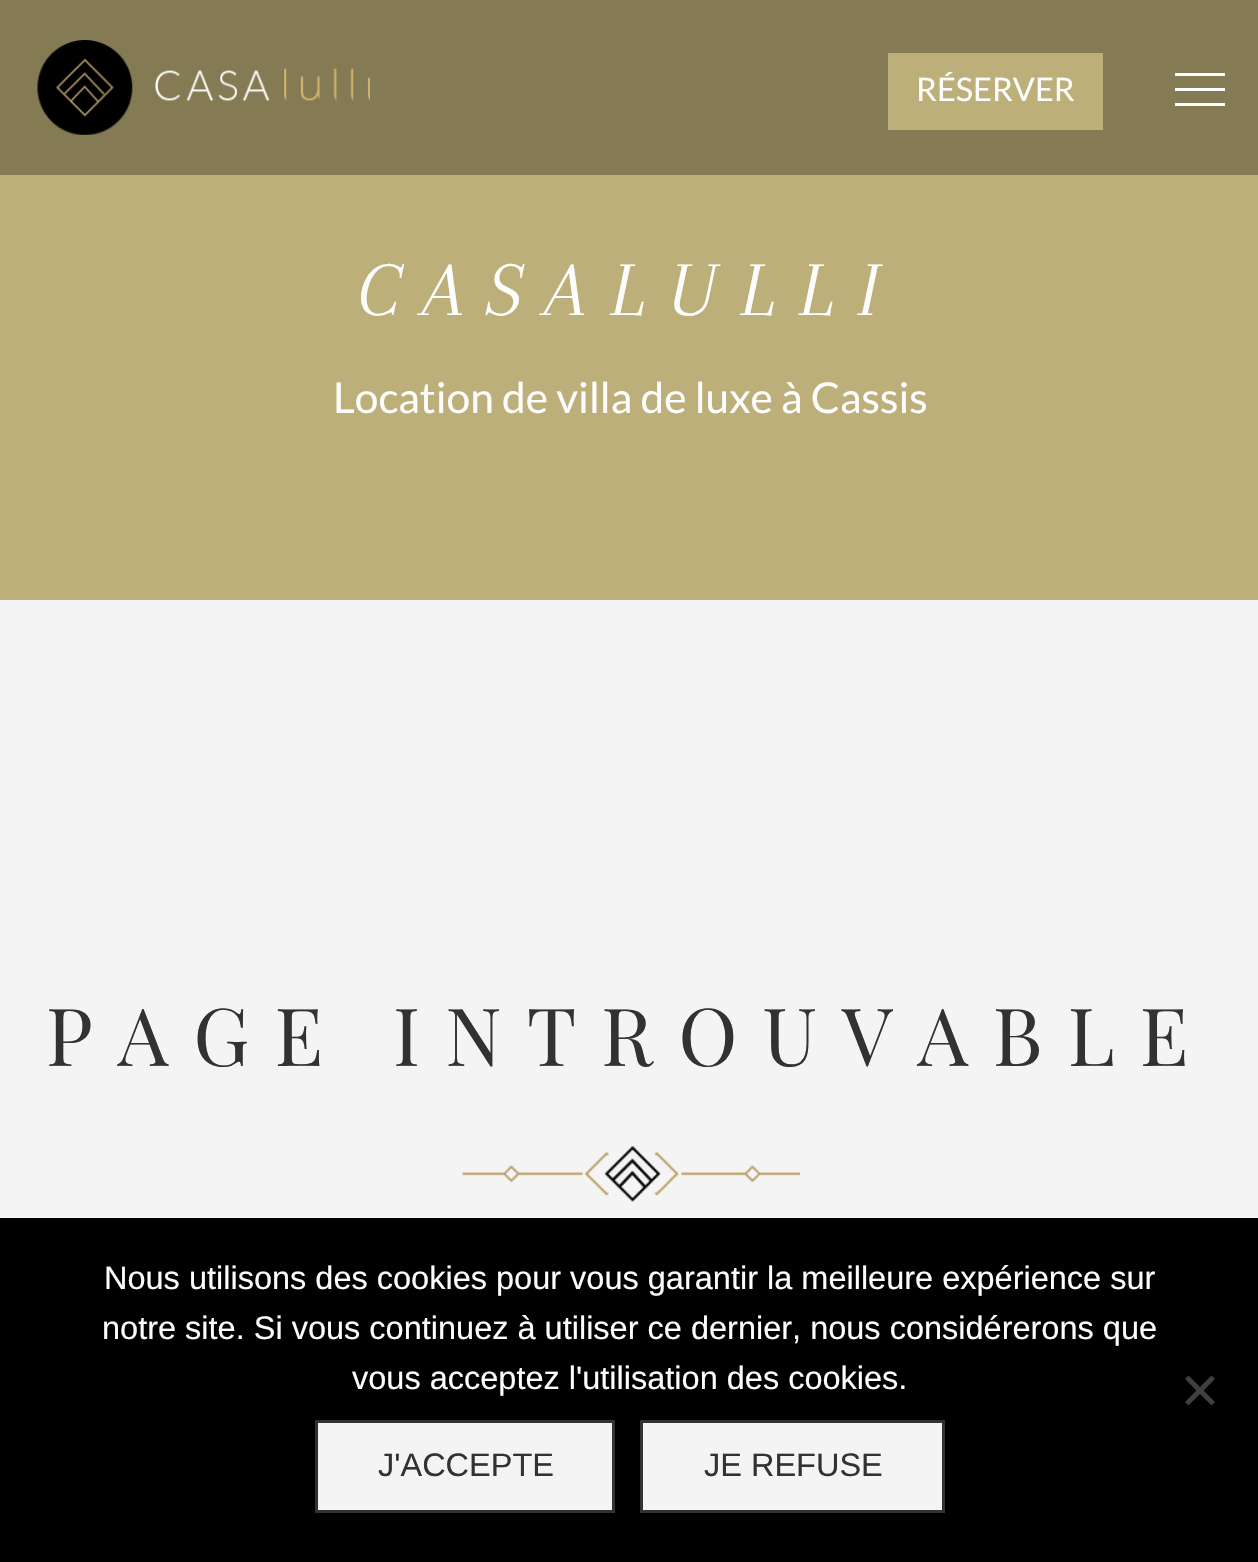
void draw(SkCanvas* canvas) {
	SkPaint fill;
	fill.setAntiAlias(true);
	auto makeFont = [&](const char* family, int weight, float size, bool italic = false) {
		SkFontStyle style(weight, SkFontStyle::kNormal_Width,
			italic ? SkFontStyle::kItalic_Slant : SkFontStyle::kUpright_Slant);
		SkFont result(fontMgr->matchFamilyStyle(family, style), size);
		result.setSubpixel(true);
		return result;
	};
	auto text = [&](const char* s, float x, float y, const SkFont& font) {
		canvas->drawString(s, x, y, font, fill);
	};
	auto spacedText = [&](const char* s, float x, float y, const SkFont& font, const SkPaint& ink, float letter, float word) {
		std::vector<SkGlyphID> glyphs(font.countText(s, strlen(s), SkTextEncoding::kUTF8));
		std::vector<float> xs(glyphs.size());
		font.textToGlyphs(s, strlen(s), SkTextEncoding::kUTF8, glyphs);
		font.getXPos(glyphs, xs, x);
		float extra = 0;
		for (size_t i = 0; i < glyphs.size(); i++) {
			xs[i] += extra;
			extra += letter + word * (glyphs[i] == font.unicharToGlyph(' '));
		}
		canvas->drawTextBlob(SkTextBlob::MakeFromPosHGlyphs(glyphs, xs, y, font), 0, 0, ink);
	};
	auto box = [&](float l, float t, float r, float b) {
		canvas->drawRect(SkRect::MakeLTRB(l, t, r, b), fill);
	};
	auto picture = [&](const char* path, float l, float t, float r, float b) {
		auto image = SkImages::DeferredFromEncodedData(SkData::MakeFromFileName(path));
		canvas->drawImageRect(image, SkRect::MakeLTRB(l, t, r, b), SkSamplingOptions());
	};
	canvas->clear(0xFFF4F4F4);
	fill.setColor(0xFF847B54);
	box(0, 0, 1258, 175);
	picture("image0.png", 37, 40, 370, 135);
	fill.setColor(0xFFBDAF79);
	box(888, 53, 1103, 130);
	fill.setColor(0xFFFFFFFF);
	box(1175, 73, 1225, 76);
	box(1175, 88, 1225, 91);
	box(1175, 103, 1225, 106);
	fill.setColor(0xFFBDAF79);
	box(0, 175, 1258, 600);
	picture("image1.png", 462, 1146, 800, 1202);
	fill.setColor(0xFF000000);
	box(0, 1218, 1258, 1562);
	fill.setColor(0xFF404040);
	canvas->drawPath(SkPathBuilder().moveTo(1211.5f, 1375.5f).lineTo(1215, 1379).lineTo(1188.5f, 1405.5f).lineTo(1185, 1402).close().detach(), fill);
	canvas->drawPath(SkPathBuilder().moveTo(1185, 1379).lineTo(1188.5f, 1375.5f).lineTo(1215, 1402).lineTo(1211.5f, 1405.5f).close().detach(), fill);
	fill.setColor(0xFFF4F4F4);
	canvas->drawRect(SkRect::MakeLTRB(316.5f, 1421.5f, 613.5f, 1511.5f), fill);
	fill.setStyle(SkPaint::kStroke_Style);
	fill.setStrokeWidth(3);
	fill.setColor(0xFF323232);
	canvas->drawRect(SkRect::MakeLTRB(316.5f, 1421.5f, 613.5f, 1511.5f), fill);
	fill.setStyle(SkPaint::kFill_Style);
	fill.setColor(0xFFF4F4F4);
	canvas->drawRect(SkRect::MakeLTRB(641.5f, 1421.5f, 943.5f, 1511.5f), fill);
	fill.setStyle(SkPaint::kStroke_Style);
	fill.setColor(0xFF323232);
	canvas->drawRect(SkRect::MakeLTRB(641.5f, 1421.5f, 943.5f, 1511.5f), fill);
	auto font1 = makeFont("Lato", 400, 32.5f);
	fill.setStyle(SkPaint::kFill_Style);
	fill.setColor(0xFFFDFDFD);
	text("RÉSERVER", 916, 101, font1);
	auto font2 = makeFont("Arapey", 400, 80, true);
	spacedText("CASALULLI", 357, 315, font2, fill, 22.5f, 0);
	auto font3 = makeFont("Lato", 400, 42.5f);
	text("Location de villa de luxe à Cassis", 333, 413, font3);
	auto font4 = makeFont("Playfair Display", 400, 80);
	fill.setColor(0xFF323232);
	spacedText("PAGE INTROUVABLE", 46, 1066, font4, fill, 25, 0);
	auto font5 = makeFont("Liberation Sans", 400, 32.5f);
	fill.setColor(0xFFFDFDFD);
	text("Nous utilisons des cookies pour vous garantir la meilleure expérience sur", 104, 1289, font5);
	text("notre site. Si vous continuez à utiliser ce dernier, nous considérerons que", 102, 1339, font5);
	text("vous acceptez l'utilisation des cookies.", 352, 1389, font5);
	fill.setColor(0xFF323232);
	text("J'ACCEPTE", 378, 1476, font5);
	text("JE REFUSE", 704, 1476, font5);
}
